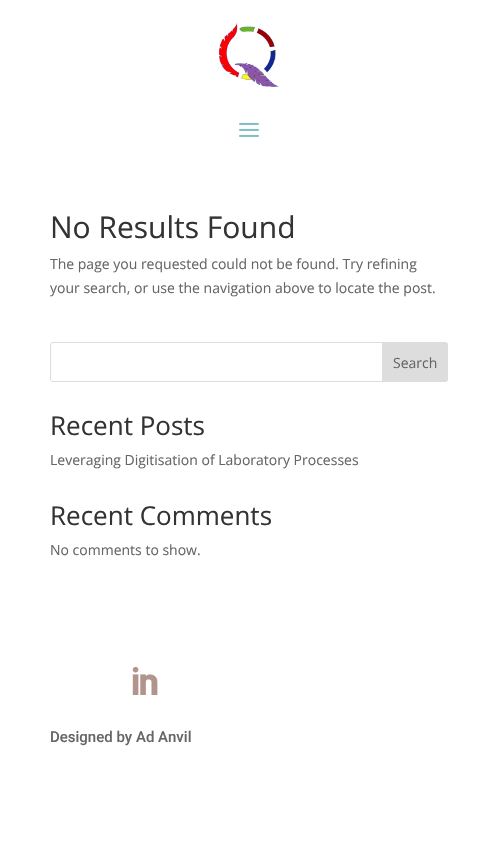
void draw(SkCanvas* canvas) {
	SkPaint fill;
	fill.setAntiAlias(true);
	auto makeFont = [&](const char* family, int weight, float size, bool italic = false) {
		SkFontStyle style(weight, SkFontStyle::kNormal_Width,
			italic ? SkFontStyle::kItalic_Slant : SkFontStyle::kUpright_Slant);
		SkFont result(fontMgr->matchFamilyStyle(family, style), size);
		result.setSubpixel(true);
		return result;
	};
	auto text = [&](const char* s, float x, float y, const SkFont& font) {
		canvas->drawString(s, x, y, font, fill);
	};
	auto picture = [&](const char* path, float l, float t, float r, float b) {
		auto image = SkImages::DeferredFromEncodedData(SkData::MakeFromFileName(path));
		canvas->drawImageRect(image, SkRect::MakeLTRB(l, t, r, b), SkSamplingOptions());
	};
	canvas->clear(0xFFFFFFFF);
	picture("image0.png", 219, 23, 279, 87);
	picture("image1.png", 239, 122, 259, 137);
	fill.setStyle(SkPaint::kStroke_Style);
	fill.setStrokeWidth(1);
	fill.setColor(0xFFDDDDDD);
	canvas->drawRoundRect(SkRect::MakeLTRB(50.5f, 342.5f, 447.5f, 381.5f), 2.5f, 2.5f, fill);
	fill.setStyle(SkPaint::kFill_Style);
	canvas->drawPath(SkPathBuilder().moveTo(382.5f, 342.5f).lineTo(445, 342.5f).cubicTo(446.5f, 342.5f, 447.5f, 343.5f, 447.5f, 345).lineTo(447.5f, 379).cubicTo(447.5f, 380.5f, 446.5f, 381.5f, 445, 381.5f).lineTo(382.5f, 381.5f).close().detach(), fill);
	fill.setStyle(SkPaint::kStroke_Style);
	canvas->drawPath(SkPathBuilder().moveTo(382.5f, 342.5f).lineTo(445, 342.5f).cubicTo(446.5f, 342.5f, 447.5f, 343.5f, 447.5f, 345).lineTo(447.5f, 379).cubicTo(447.5f, 380.5f, 446.5f, 381.5f, 445, 381.5f).lineTo(382.5f, 381.5f).close().detach(), fill);
	picture("image2.png", 132, 666, 158, 695);
	auto font1 = makeFont("Open Sans", 400, 30);
	fill.setStyle(SkPaint::kFill_Style);
	fill.setColor(0xFF333333);
	text("No Results Found", 50, 238, font1);
	auto font2 = makeFont("Open Sans", 400, 14);
	fill.setColor(0xFF666666);
	text("The page you requested could not be found. Try refining", 50, 269, font2);
	text("your search, or use the navigation above to locate the post.", 50, 293, font2);
	text("Search", 393, 368, font2);
	auto font3 = makeFont("Open Sans", 400, 26);
	fill.setColor(0xFF333333);
	text("Recent Posts", 50, 435, font3);
	fill.setColor(0xFF666666);
	text("Leveraging Digitisation of Laboratory Processes", 50, 465, font2);
	fill.setColor(0xFF333333);
	text("Recent Comments", 50, 525, font3);
	fill.setColor(0xFF666666);
	text("No comments to show.", 50, 555, font2);
	auto font4 = makeFont("Roboto", 500, 15);
	text("Designed by Ad Anvil", 50, 742, font4);
}
